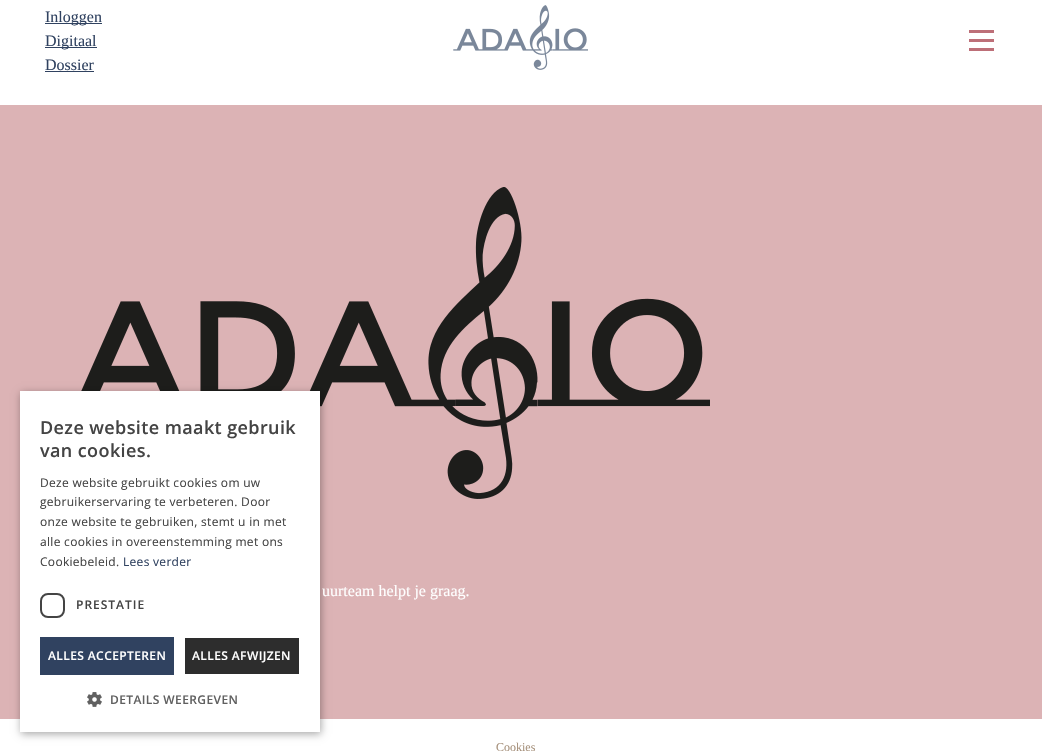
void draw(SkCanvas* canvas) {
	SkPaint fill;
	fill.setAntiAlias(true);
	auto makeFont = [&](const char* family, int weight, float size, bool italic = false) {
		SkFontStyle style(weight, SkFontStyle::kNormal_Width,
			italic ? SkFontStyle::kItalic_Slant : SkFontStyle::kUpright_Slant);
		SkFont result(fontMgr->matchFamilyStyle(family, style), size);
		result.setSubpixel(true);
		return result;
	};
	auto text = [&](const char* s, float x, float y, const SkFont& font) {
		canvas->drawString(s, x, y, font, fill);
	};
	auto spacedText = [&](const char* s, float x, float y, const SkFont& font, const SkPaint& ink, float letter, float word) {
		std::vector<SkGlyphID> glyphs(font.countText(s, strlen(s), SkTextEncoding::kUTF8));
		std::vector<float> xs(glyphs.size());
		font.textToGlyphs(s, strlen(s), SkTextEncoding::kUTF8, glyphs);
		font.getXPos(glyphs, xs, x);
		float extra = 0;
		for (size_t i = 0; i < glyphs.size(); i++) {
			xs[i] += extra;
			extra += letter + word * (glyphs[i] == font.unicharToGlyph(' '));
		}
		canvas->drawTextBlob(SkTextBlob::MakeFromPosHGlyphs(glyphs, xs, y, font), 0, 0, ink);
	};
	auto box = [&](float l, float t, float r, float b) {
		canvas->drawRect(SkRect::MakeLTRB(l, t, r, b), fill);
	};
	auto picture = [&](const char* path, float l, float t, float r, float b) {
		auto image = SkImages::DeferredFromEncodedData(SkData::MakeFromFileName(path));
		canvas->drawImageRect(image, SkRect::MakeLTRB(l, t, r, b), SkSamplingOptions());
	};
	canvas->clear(0xFFFFFFFF);
	fill.setColor(0xFF304260);
	box(45, 23, 102, 24);
	box(45, 47, 97, 48);
	box(45, 71, 94, 72);
	picture("image0.png", 453, 5, 588, 70);
	fill.setColor(0xFFBD6F78);
	box(969, 30, 994, 33);
	box(969, 39, 994, 42);
	box(969, 48, 994, 51);
	fill.setColor(0xFFDCB3B5);
	box(0, 105, 1042, 719);
	picture("image2.png", 81, 187, 710, 499);
	fill.setColor(0x59000000);
	fill.setMaskFilter(SkMaskFilter::MakeBlur(kNormal_SkBlurStyle, 4));
	canvas->drawRect(SkRect::MakeLTRB(21, 393, 321, 734), fill);
	fill.setMaskFilter(nullptr);
	fill.setColor(0xFFFFFFFF);
	box(20, 391, 320, 732);
	fill.setStyle(SkPaint::kStroke_Style);
	fill.setStrokeWidth(2);
	fill.setColor(0xFF444444);
	canvas->drawRoundRect(SkRect::MakeLTRB(41, 594, 64, 617), 7, 7, fill);
	fill.setStyle(SkPaint::kFill_Style);
	fill.setColor(0xFF304260);
	box(40, 637, 174, 675);
	fill.setColor(0xFF2D2D2D);
	box(185, 638, 299, 674);
	picture("image1.png", 87, 692, 102, 707);
	auto font1 = makeFont("Liberation Serif", 400, 16);
	fill.setColor(0xFF304260);
	text("Inloggen", 45, 22, font1);
	text("Digitaal", 45, 46, font1);
	text("Dossier", 45, 70, font1);
	auto font2 = makeFont("Open Sans", 600, 18);
	fill.setColor(0xFF444444);
	spacedText("Deze website maakt gebruik", 40, 434, font2, fill, 0.4f, 0);
	spacedText("van cookies.", 40, 457, font2, fill, 0.4f, 0);
	auto font3 = makeFont("Open Sans", 400, 12);
	spacedText("Deze website gebruikt cookies om uw", 40, 487, font3, fill, 0.3f, 0);
	spacedText("gebruikerservaring te verbeteren. Door", 40, 506, font3, fill, 0.3f, 0);
	spacedText("onze website te gebruiken, stemt u in met", 40, 526, font3, fill, 0.3f, 0);
	spacedText("alle cookies in overeenstemming met ons", 40, 546, font3, fill, 0.3f, 0);
	spacedText("Cookiebeleid.", 40, 566, font3, fill, 0.3f, 0);
	fill.setColor(0xFF304260);
	spacedText("Lees verder", 123, 566, font3, fill, 0.3f, 0);
	auto font4 = makeFont("Open Sans", 600, 12);
	fill.setColor(0xFF444444);
	spacedText("PRESTATIE", 76, 609, font4, fill, 1, 0);
	fill.setColor(0xFFFFFFFF);
	spacedText("ALLES ACCEPTEREN", 48, 660, font4, fill, 0.4f, 0);
	spacedText("ALLES AFWIJZEN", 192, 660, font4, fill, 0.4f, 0);
	fill.setColor(0xFF606060);
	spacedText("DETAILS WEERGEVEN", 110, 704, font4, fill, 0.4f, 0);
	fill.setColor(0xFFFFFFFF);
	text("uurteam helpt je graag.", 322, 596, font1);
	auto font5 = makeFont("Liberation Serif", 400, 12);
	fill.setColor(0xFFA7927D);
	text("Cookies", 496, 751, font5);
}
